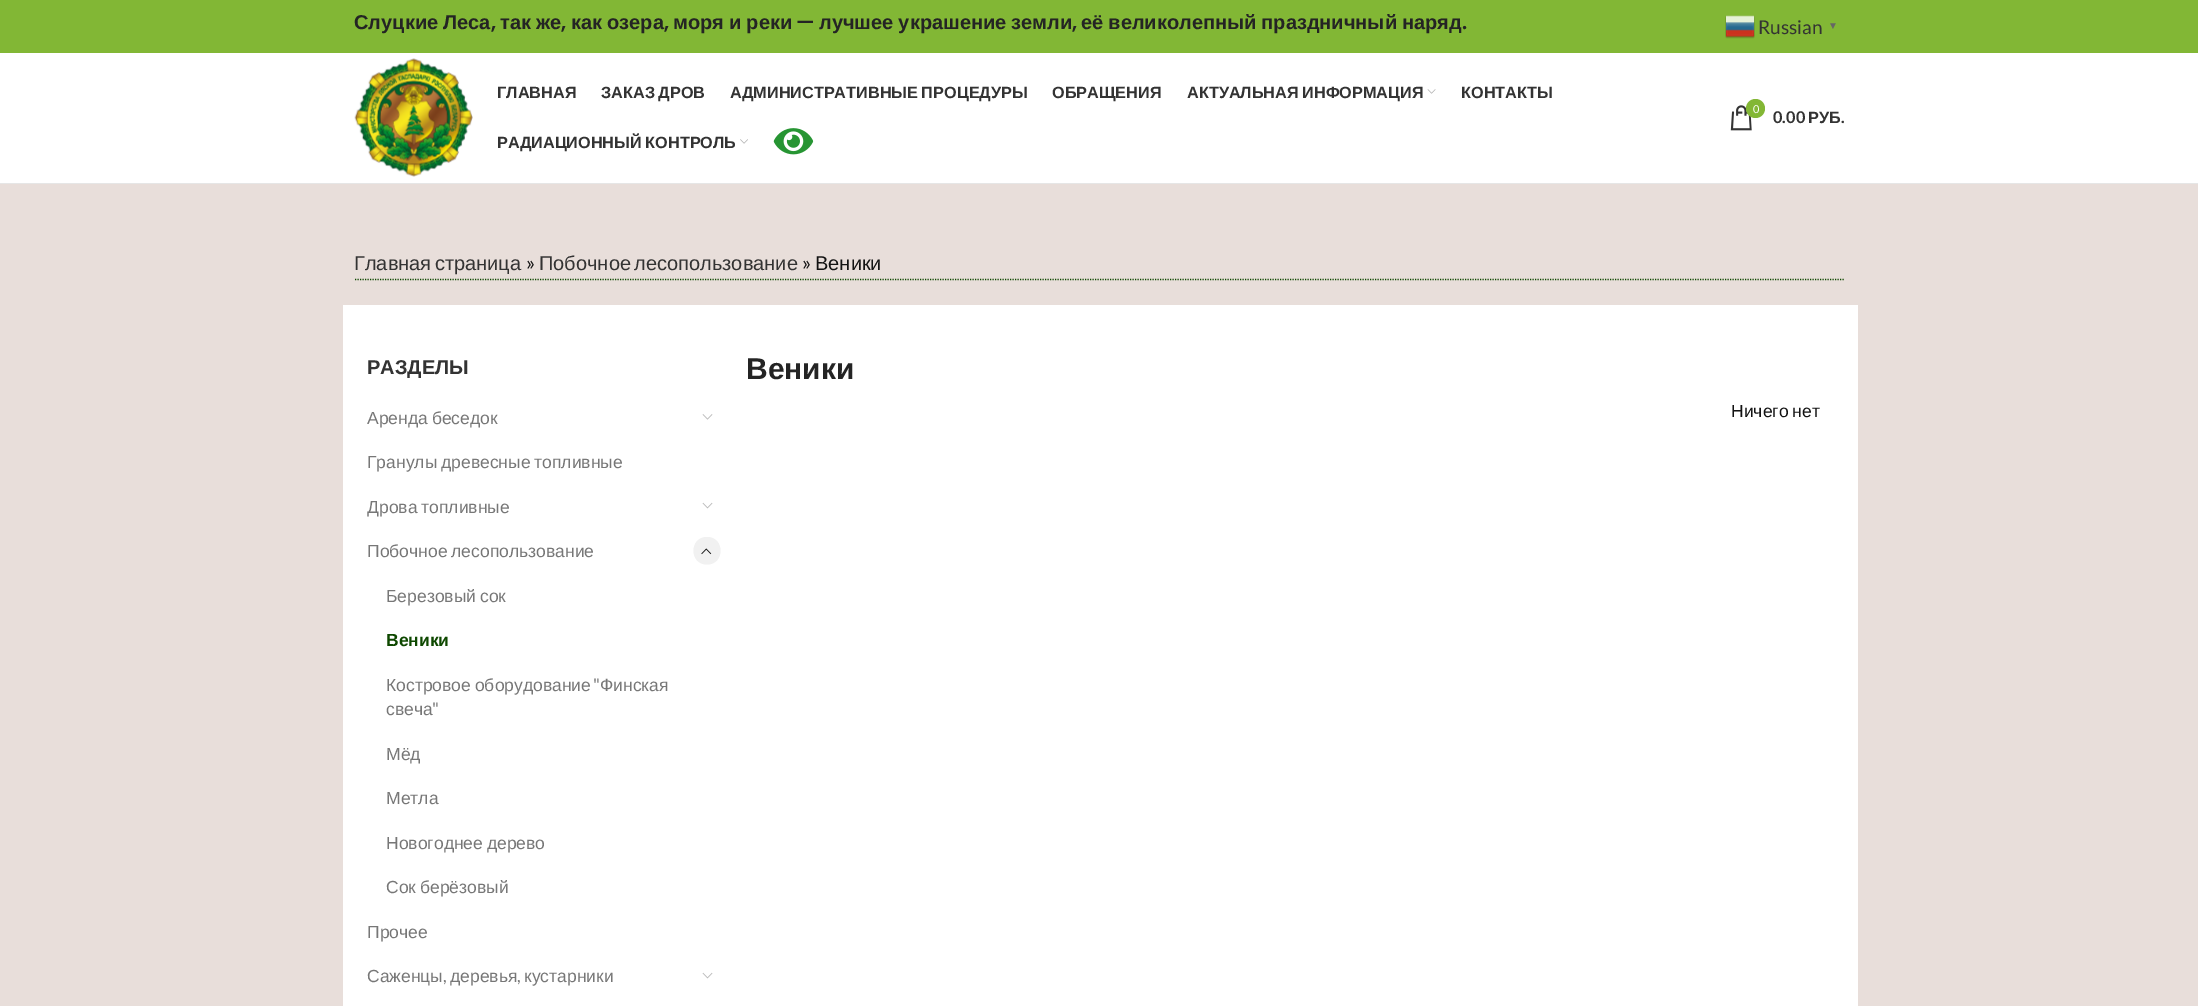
%!PS
<< /PageSize [2198 1006] >> setpagedevice
/mt/moveto load def
/li/lineto load def
/ct/curveto load def
/cp/closepath load def
/fl/fill load def
/st/stroke load def
/lw/setlinewidth load def
/co { dup -16 bitshift 255 div exch dup -8 bitshift 255 and 255 div exch 255 and 255 div setrgbcolor } def
/fn { [ exch dup neg 0 0 3 -1 roll 0 0 ] selectfont } def
/tx { co fn moveto show } def
/bx { co rectfill } def
/ci { newpath 0 360 arc closepath } def
/im { 5 dict begin { /h /w /y /x /name } { exch def } forall
  gsave x y translate w h scale
  w h 8 [w 0 0 h 0 0] name (r) file false 3 colorimage grestore end } def
0 1006 translate 1 -1 scale
4 setmiterlimit
0 0 2198 1006 16#FFFFFF bx
0 0 2198 53 16#82B735 bx
(media/1.raw) 1725 15 30 24 im
0 183 2198 1 16#E6E6E6 bx
(media/2.raw) 354 58 119 119 im
(media/3.raw) 1427 89 9 5 im
(media/4.raw) 740 139 8 5 im
(media/5.raw) 773 128 41 27 im
(media/6.raw) 1730 105 22 26 im
16#83B735 co
1755.5 108.5 9.5 ci fl
0 184 2198 822 16#E8DEDA bx
16#0E4800 co
1.2 lw
[1.25 1.25] 0 setdash
355 279.5 mt 1845 279.5 li st
343 305 1515 701 16#FFFFFF bx
(media/7.raw) 702 414 11 6 im
(media/8.raw) 702 502 11 7 im
16#F1F1F1 co
707 564.5 mt 689 564.5 689 537 707 537 ct 725 537 725 564.5 707 564.5 ct cp fl
(media/9.raw) 701 548 11 7 im
(media/8.raw) 702 972 11 7 im
/LiberationSans-Bold 20 fn
16#242424 co
354 29 mt -.5 0 32 (Слуцкие Леса) widthshow
500 29 mt -.5 0 32 (так же) widthshow
571 29 mt -.5 0 32 (как озера) widthshow
673 29 mt -.5 0 32 (моря и реки) widthshow
(—) 796 29 /Poppins-SemiBold 20 16#242424 tx
/LiberationSans-Bold 20 fn
819 29 mt -.5 0 32 (лучшее украшение земли) widthshow
1081 29 mt -.5 0 32 (её великолепный праздничный наряд) widthshow
(,) 491 29 /Poppins-SemiBold 20 16#242424 tx
(,) 561 29 /Poppins-SemiBold 20 16#242424 tx
(,) 664 29 /Poppins-SemiBold 20 16#242424 tx
(,) 1072 29 /Poppins-SemiBold 20 16#242424 tx
(.) 1462 29 /Poppins-SemiBold 20 16#242424 tx
(Russian) 1758 34 /Lato-Regular 19 16#333333 tx
(▼) 1828 29 /LiberationSans-Bold 10 16#666666 tx
(ГЛАВНАЯ) 497 98 /LiberationSans-Bold 16.25 16#333333 tx
601 98 mt -1 0 32 (ЗАКАЗ ДРОВ) widthshow
730 98 mt -1 0 32 (АДМИНИСТРАТИВНЫЕ ПРОЦЕДУРЫ) widthshow
(ОБРАЩЕНИЯ) 1052 98 /LiberationSans-Bold 16.25 16#333333 tx
1187 98 mt -1 0 32 (АКТУАЛЬНАЯ ИНФОРМАЦИЯ) widthshow
(КОНТАКТЫ) 1461 98 /LiberationSans-Bold 16.25 16#333333 tx
497 148 mt -1 0 32 (РАДИАЦИОННЫЙ КОНТРОЛЬ) widthshow
(0) 1753 113 /Lato-Regular 11 16#FFFFFF tx
(0.00) 1773 123 /Lato-Bold 16.25 16#333333 tx
(РУБ) 1808 123 /LiberationSans-Bold 16.25 16#333333 tx
(.) 1841 123 /Lato-Bold 16.25 16#333333 tx
/LiberationSans-Regular 20 fn
354 270 mt -2 0 32 (Главная страница) widthshow
(») 526 270 /Lato-Regular 20 16#131313 tx
/LiberationSans-Regular 20 fn
16#333333 co
539 270 mt -2 0 32 (Побочное лесопользование) widthshow
(») 802 270 /Lato-Regular 20 16#131313 tx
(Веники) 815 270 /LiberationSans-Regular 20 16#131313 tx
(РАЗДЕЛЫ) 367 374 /LiberationSans-Bold 20 16#333333 tx
/LiberationSans-Regular 17.5 fn
16#777777 co
367 424 mt -1 0 32 (Аренда беседок) widthshow
367 468 mt -1 0 32 (Гранулы древесные топливные) widthshow
367 513 mt -1 0 32 (Дрова топливные) widthshow
367 557 mt -1 0 32 (Побочное лесопользование) widthshow
386 602 mt -1 0 32 (Березовый сок) widthshow
(Веники) 386 646 /LiberationSans-Bold 17.5 16#0E4800 tx
/LiberationSans-Regular 17.5 fn
16#777777 co
386 691 mt -1 0 32 (Костровое оборудование) widthshow
(") 593 691 /Lato-Regular 17.5 16#777777 tx
(Финская) 600 691 /LiberationSans-Regular 17.5 16#777777 tx
(") 432 715 /Lato-Regular 17.5 16#777777 tx
(свеча) 386 715 /LiberationSans-Regular 17.5 16#777777 tx
(Мёд) 386 760 /LiberationSans-Regular 17.5 16#777777 tx
(Метла) 386 804 /LiberationSans-Regular 17.5 16#777777 tx
386 849 mt -1 0 32 (Новогоднее дерево) widthshow
386 893 mt -1 0 32 (Сок берёзовый) widthshow
(Прочее) 367 938 /LiberationSans-Regular 17.5 16#777777 tx
(Саженцы) 367 982 /LiberationSans-Regular 17.5 16#777777 tx
(,) 443 982 /Lato-Regular 17.5 16#777777 tx
(деревья) 450 982 /LiberationSans-Regular 17.5 16#777777 tx
(,) 517 982 /Lato-Regular 17.5 16#777777 tx
(кустарники) 524 982 /LiberationSans-Regular 17.5 16#777777 tx
(Веники) 746 379 /LiberationSans-Bold 30 16#242424 tx
/LiberationSans-Regular 17.5 fn
16#131313 co
1731 417 mt -1 0 32 (Ничего нет) widthshow
showpage
